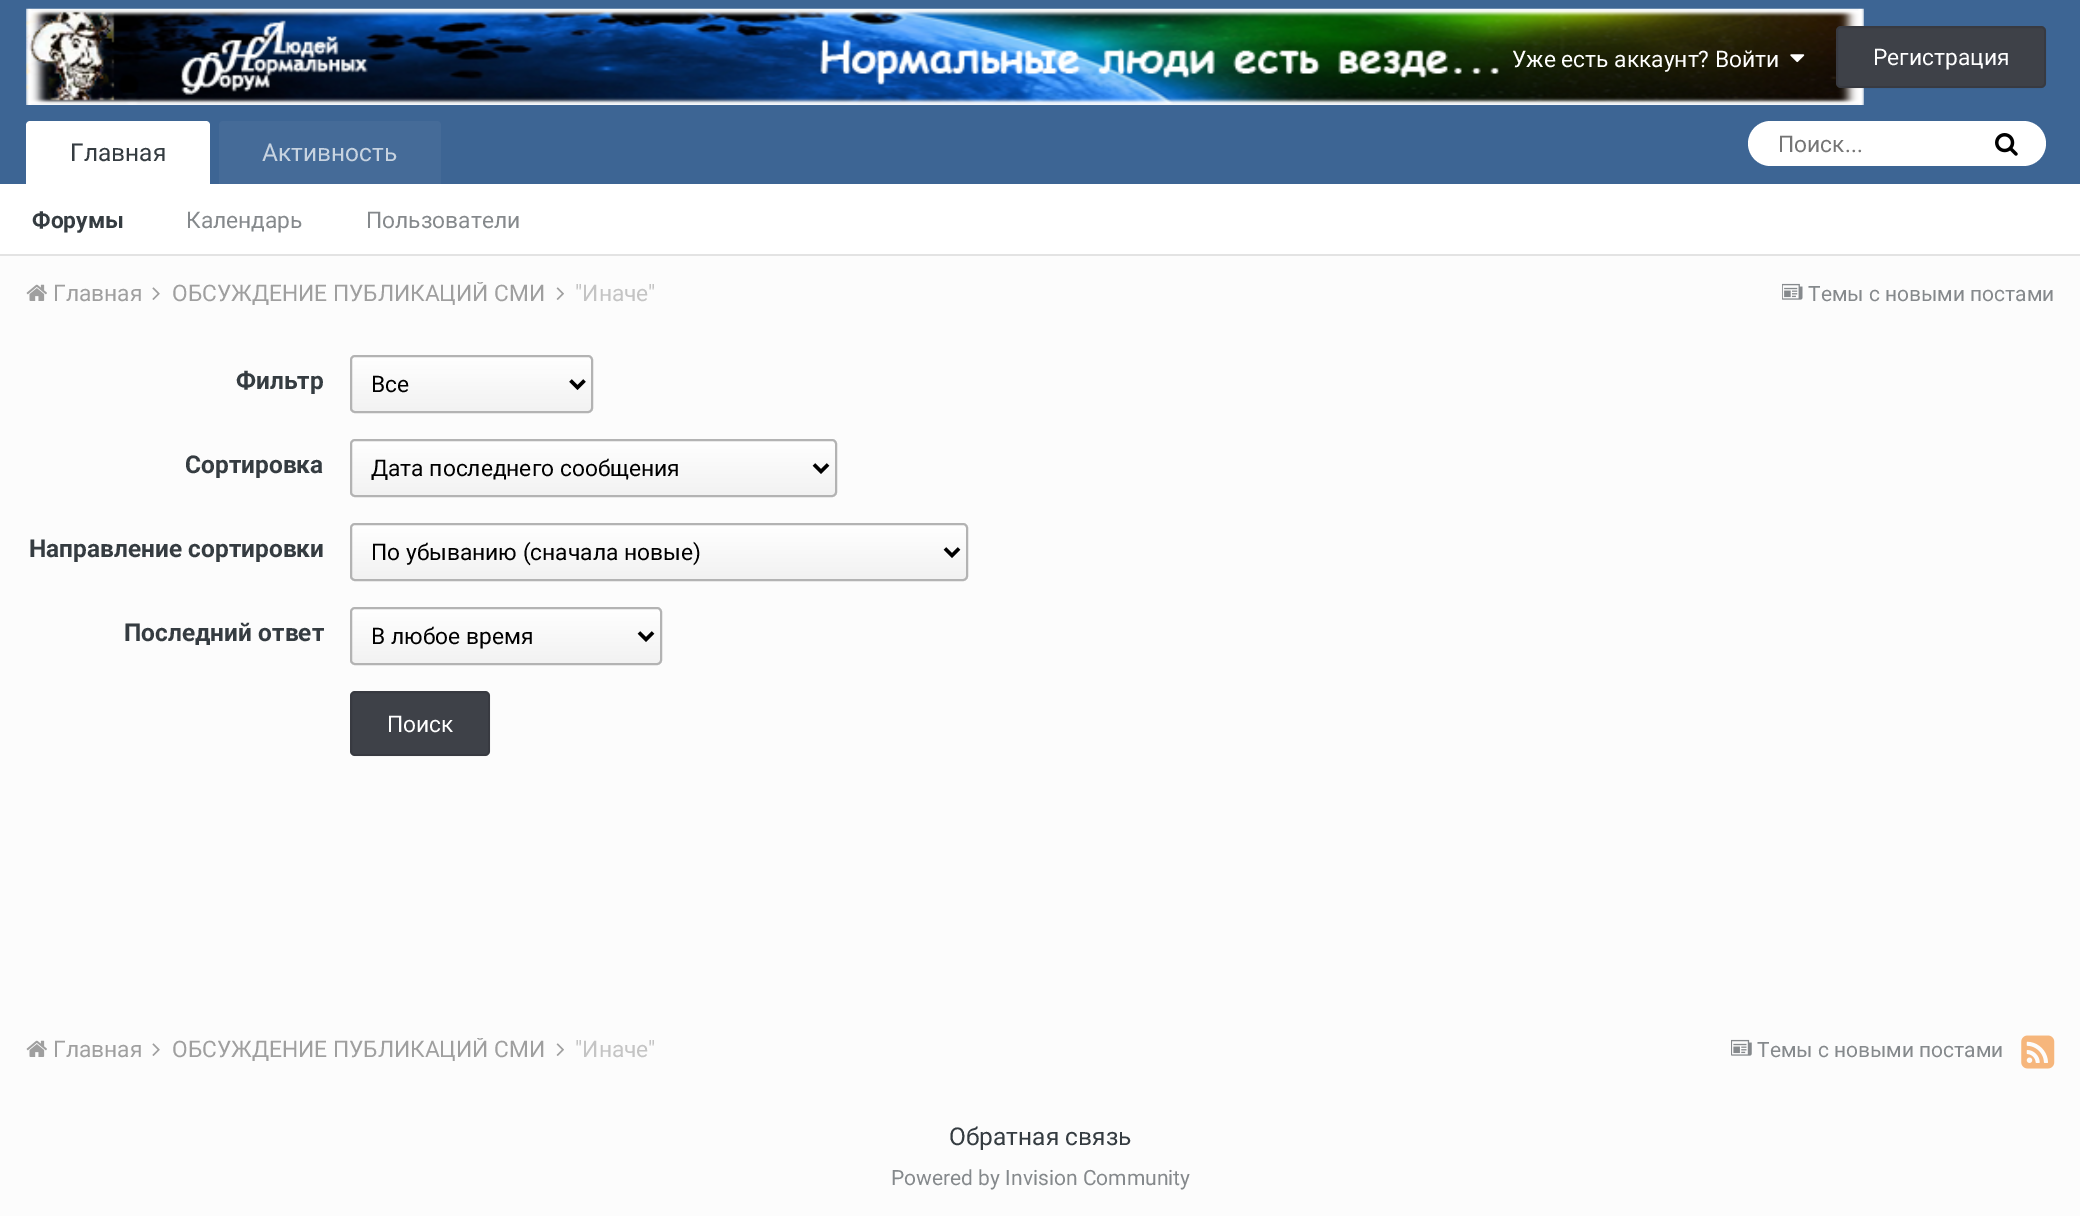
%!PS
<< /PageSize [2080 1216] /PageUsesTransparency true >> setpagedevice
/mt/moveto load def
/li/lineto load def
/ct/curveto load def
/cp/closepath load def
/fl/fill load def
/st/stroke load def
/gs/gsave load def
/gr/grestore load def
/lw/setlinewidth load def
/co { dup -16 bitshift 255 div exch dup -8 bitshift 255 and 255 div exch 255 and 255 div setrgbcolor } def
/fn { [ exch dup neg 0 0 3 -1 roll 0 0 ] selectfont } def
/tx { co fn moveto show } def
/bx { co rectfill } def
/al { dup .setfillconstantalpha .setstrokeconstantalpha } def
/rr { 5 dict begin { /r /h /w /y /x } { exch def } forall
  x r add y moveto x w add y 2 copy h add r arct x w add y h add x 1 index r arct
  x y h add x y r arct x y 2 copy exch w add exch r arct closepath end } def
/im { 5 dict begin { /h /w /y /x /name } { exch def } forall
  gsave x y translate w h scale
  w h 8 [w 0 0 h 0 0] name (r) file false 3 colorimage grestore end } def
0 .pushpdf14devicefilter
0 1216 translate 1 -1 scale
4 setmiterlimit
0 0 2080 1216 16#FCFCFC bx
0 254 2080 2 16#E3E3E3 bx
0 0 2080 184 16#3D6594 bx
(media/1.raw) 26 8 1838 97 im
(media/2.raw) 1790 54 15 9 im
16#3E4148 co
1836 26 210 62 5 rr fl
0.1 al
16#000000 co
2 lw
1837 27 208 60 4 rr st
1 al
0 184 2080 70 16#FFFFFF bx
30 121 mt 206 121 li 208 121 210 123 210 125 ct 210 184 li 26 184 li 26 125 li 26 123 28 121 30 121 ct cp fl
16#456B98 co
223 121 mt 437 121 li 439 121 441 123 441 125 ct 441 184 li 219 184 li 219 125 li 219 123 221 121 223 121 ct cp fl
16#FFFFFF co
1748 121 298 45 22.5 rr fl
(media/3.raw) 1995 133 23 23 im
(media/4.raw) 26 284 21 17 im
(media/5.raw) 152 287 8 13 im
(media/6.raw) 556 287 8 13 im
(media/7.raw) 1782 283 21 17 im
gs
350 355 243 58 5 rr clip newpath
gs 350 357 mt 593 357 li 593 411 li 350 411 li cp clip newpath
<< /ShadingType 2 /ColorSpace /DeviceRGB /Coords [472 357 472 411] /Extend [true true] /Function << /FunctionType 2 /Domain [0 1] /C0 [1 1 1] /C1 [.949 .949 .949] /N 1 >> >> shfill gr
gr
16#B3B3B3 co
351 356 241 56 4 rr st
16#000000 co
3.5 lw
570.5 380.5 mt 577.5 387.5 li 584.5 380.5 li st
gs
350 439 487 58 5 rr clip newpath
gs 350 441 mt 837 441 li 837 495 li 350 495 li cp clip newpath
<< /ShadingType 2 /ColorSpace /DeviceRGB /Coords [593 441 593 495] /Extend [true true] /Function << /FunctionType 2 /Domain [0 1] /C0 [1 1 1] /C1 [.949 .949 .949] /N 1 >> >> shfill gr
gr
16#B3B3B3 co
2 lw
351 440 485 56 4 rr st
16#000000 co
3.5 lw
814 464.5 mt 821 471.5 li 828 464.5 li st
gs
350 523 618 58 5 rr clip newpath
gs 350 525 mt 968 525 li 968 579 li 350 579 li cp clip newpath
<< /ShadingType 2 /ColorSpace /DeviceRGB /Coords [659 525 659 579] /Extend [true true] /Function << /FunctionType 2 /Domain [0 1] /C0 [1 1 1] /C1 [.949 .949 .949] /N 1 >> >> shfill gr
gr
16#B3B3B3 co
2 lw
351 524 616 56 4 rr st
16#000000 co
3.5 lw
945 548.5 mt 952 555.5 li 959 548.5 li st
gs
350 607 312 58 5 rr clip newpath
gs 350 609 mt 662 609 li 662 663 li 350 663 li cp clip newpath
<< /ShadingType 2 /ColorSpace /DeviceRGB /Coords [506 609 506 663] /Extend [true true] /Function << /FunctionType 2 /Domain [0 1] /C0 [1 1 1] /C1 [.949 .949 .949] /N 1 >> >> shfill gr
gr
16#B3B3B3 co
2 lw
351 608 310 56 4 rr st
16#000000 co
3.5 lw
639 632.5 mt 646 639.5 li 653 632.5 li st
16#3E4148 co
350 691 140 65 5 rr fl
0.1 al
16#000000 co
2 lw
351 692 138 63 4 rr st
1 al
(media/4.raw) 26 1040 21 17 im
(media/5.raw) 152 1043 8 13 im
(media/6.raw) 556 1043 8 13 im
(media/8.raw) 1731 1039 21 17 im
(media/9.raw) 2021 1035 34 34 im
(Уже есть аккаунт? Войти) 1512 67 /Roboto-Regular 22.75 16#FFFFFF tx
(Регистрация) 1873 65 /Roboto-Regular 22.75 16#FFFFFF tx
(Главная) 70 161 /Roboto-Regular 24.5 16#353C41 tx
(Форумы) 32 228 /Roboto-Bold 22.75 16#353C41 tx
(Календарь) 186 228 /Roboto-Regular 22.75 16#85898C tx
(Пользователи) 366 228 /Roboto-Regular 22.75 16#85898C tx
(Активность) 262 161 /Roboto-Regular 24.5 16#C7D3E0 tx
(Поиск...) 1778 152 /Roboto-Regular 22.75 16#757575 tx
(Главная) 53 301 /Roboto-Regular 22.75 16#9F9F9F tx
gs
172 282 397 26 rectclip
(ОБСУЖДЕНИЕ ПУБЛИКАЦИЙ CМИ) 172 301 /Roboto-Regular 22.75 16#9F9F9F tx
gr
("Иначе") 575 301 /Roboto-Regular 22.75 16#C4C4C4 tx
(Темы с новыми постами) 1808 301 /Roboto-Regular 21 16#85898C tx
(Фильтр) 236 389 /Roboto-Bold 24.5 16#353C41 tx
(Все) 371 392 /Roboto-Regular 22.75 16#000000 tx
(Сортировка) 185 473 /Roboto-Bold 24.5 16#353C41 tx
(Дата последнего сообщения) 371 476 /Roboto-Regular 22.75 16#000000 tx
(Направление сортировки) 29 557 /Roboto-Bold 24.5 16#353C41 tx
(По убыванию \(сначала новые\)) 371 560 /Roboto-Regular 22.75 16#000000 tx
(Последний ответ) 124 641 /Roboto-Bold 24.5 16#353C41 tx
(В любое время) 371 644 /Roboto-Regular 22.75 16#000000 tx
(Поиск) 387 732 /Roboto-Regular 22.75 16#FFFFFF tx
(Главная) 53 1057 /Roboto-Regular 22.75 16#9F9F9F tx
gs
172 1038 397 26 rectclip
(ОБСУЖДЕНИЕ ПУБЛИКАЦИЙ CМИ) 172 1057 /Roboto-Regular 22.75 16#9F9F9F tx
gr
("Иначе") 575 1057 /Roboto-Regular 22.75 16#C4C4C4 tx
(Темы с новыми постами) 1757 1057 /Roboto-Regular 21 16#85898C tx
(Обратная связь) 949 1145 /Roboto-Regular 24.5 16#353C41 tx
(Powered by Invision Community) 891 1185 /Roboto-Regular 21 16#85898C tx
.poppdf14devicefilter showpage
